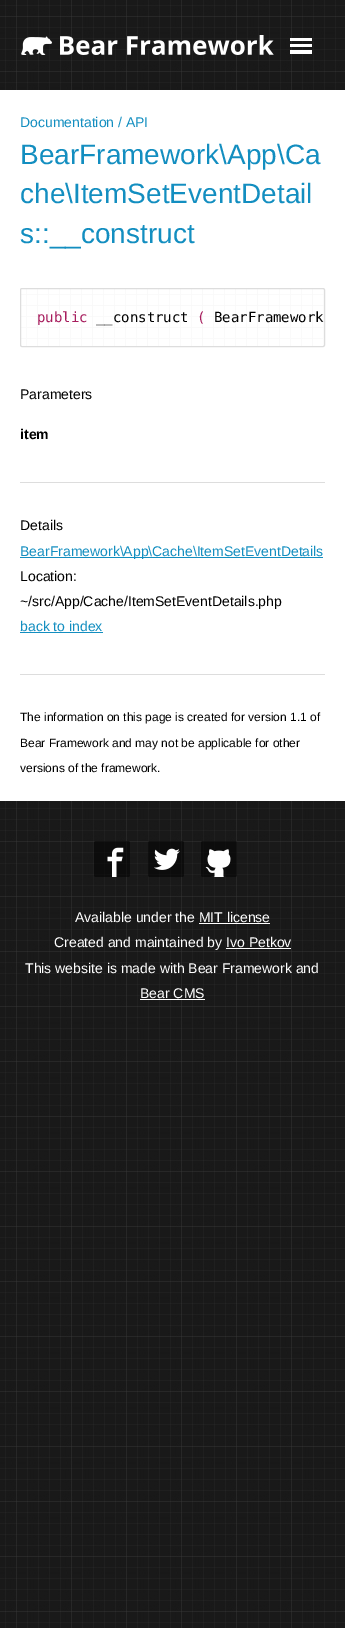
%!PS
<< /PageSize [345 1628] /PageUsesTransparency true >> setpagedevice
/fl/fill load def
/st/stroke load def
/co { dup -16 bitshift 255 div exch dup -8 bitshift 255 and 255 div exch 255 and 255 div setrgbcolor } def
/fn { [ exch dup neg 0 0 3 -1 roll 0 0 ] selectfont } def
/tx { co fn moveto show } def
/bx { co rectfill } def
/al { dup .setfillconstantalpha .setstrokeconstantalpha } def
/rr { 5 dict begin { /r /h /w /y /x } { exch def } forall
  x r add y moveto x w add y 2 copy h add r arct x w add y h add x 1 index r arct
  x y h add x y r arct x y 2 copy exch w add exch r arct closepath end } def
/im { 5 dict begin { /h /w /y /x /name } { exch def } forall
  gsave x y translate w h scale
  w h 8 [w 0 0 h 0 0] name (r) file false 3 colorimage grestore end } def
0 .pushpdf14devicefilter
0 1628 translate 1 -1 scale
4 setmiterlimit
0 0 345 1628 16#FFFFFF bx
(media/1.raw) 0 0 345 1628 im
(media/2.raw) 21 35 253 20 im
290 38 22 3 16#FFFFFF bx
290 44 22 3 16#FFFFFF bx
290 50 22 4 16#FFFFFF bx
0 90 345 711 16#FFFFFF bx
(media/3.raw) 20 288 305 59 im
16#DDDDDD co
20.5 288.5 304 58 1.5 rr st
20 482 305 1 16#DDDDDD bx
20 557 303 1 16#138EC0 bx
20 632 83 1 16#138EC0 bx
20 674 305 1 16#DDDDDD bx
0.5 al
16#000000 co
94 841 36 36 2 rr fl
1 al
(media/4.raw) 107 847 17 30 im
0.5 al
148 841 36 36 2 rr fl
1 al
(media/5.raw) 154 848 26 22 im
0.5 al
201 841 36 36 2 rr fl
1 al
(media/6.raw) 205 849 26 28 im
199 923 71 1 16#FFFFFF bx
226 948 65 1 16#FFFFFF bx
140 999 65 1 16#FFFFFF bx
(Documentation / API) 20 127 /LiberationSans-Regular 14 16#138EC0 tx
(BearFramework\\App\\Ca) 20 164 /LiberationSans-Regular 28 16#138EC0 tx
(che\\ItemSetEventDetail) 20 203 /LiberationSans-Regular 28 16#138EC0 tx
(s::__construct) 20 243 /LiberationSans-Regular 28 16#138EC0 tx
(public) 37 322 /DejaVuSansMono-Regular 14 16#A71D5D tx
(__construct) 96 322 /DejaVuSansMono-Regular 14 16#000000 tx
(\() 197 322 /DejaVuSansMono-Regular 14 16#A71D5D tx
(BearFramework) 214 322 /DejaVuSansMono-Regular 14 16#000000 tx
(Parameters) 20 399 /LiberationSans-Regular 14 16#000000 tx
(item) 20 439 /LiberationSans-Bold 14 16#000000 tx
(Details) 20 530 /LiberationSans-Regular 14 16#000000 tx
(BearFramework\\App\\Cache\\ItemSetEventDetails) 20 556 /LiberationSans-Regular 14 16#138EC0 tx
(Location:) 20 581 /LiberationSans-Regular 14 16#000000 tx
(~/src/App/Cache/ItemSetEventDetails.php) 20 606 /LiberationSans-Regular 14 16#000000 tx
(back to index) 20 631 /LiberationSans-Regular 14 16#138EC0 tx
(The information on this page is created for version 1.1 of) 20 721 /LiberationSans-Regular 12 16#000000 tx
(Bear Framework and may not be applicable for other) 20 747 /LiberationSans-Regular 12 16#000000 tx
(versions of the framework.) 20 772 /LiberationSans-Regular 12 16#000000 tx
(Available under the MIT license) 75 922 /LiberationSans-Regular 14 16#FFFFFF tx
(Created and maintained by Ivo Petkov) 54 947 /LiberationSans-Regular 14 16#FFFFFF tx
(This website is made with Bear Framework and) 25 973 /LiberationSans-Regular 14 16#FFFFFF tx
(Bear CMS) 140 998 /LiberationSans-Regular 14 16#FFFFFF tx
.poppdf14devicefilter showpage
